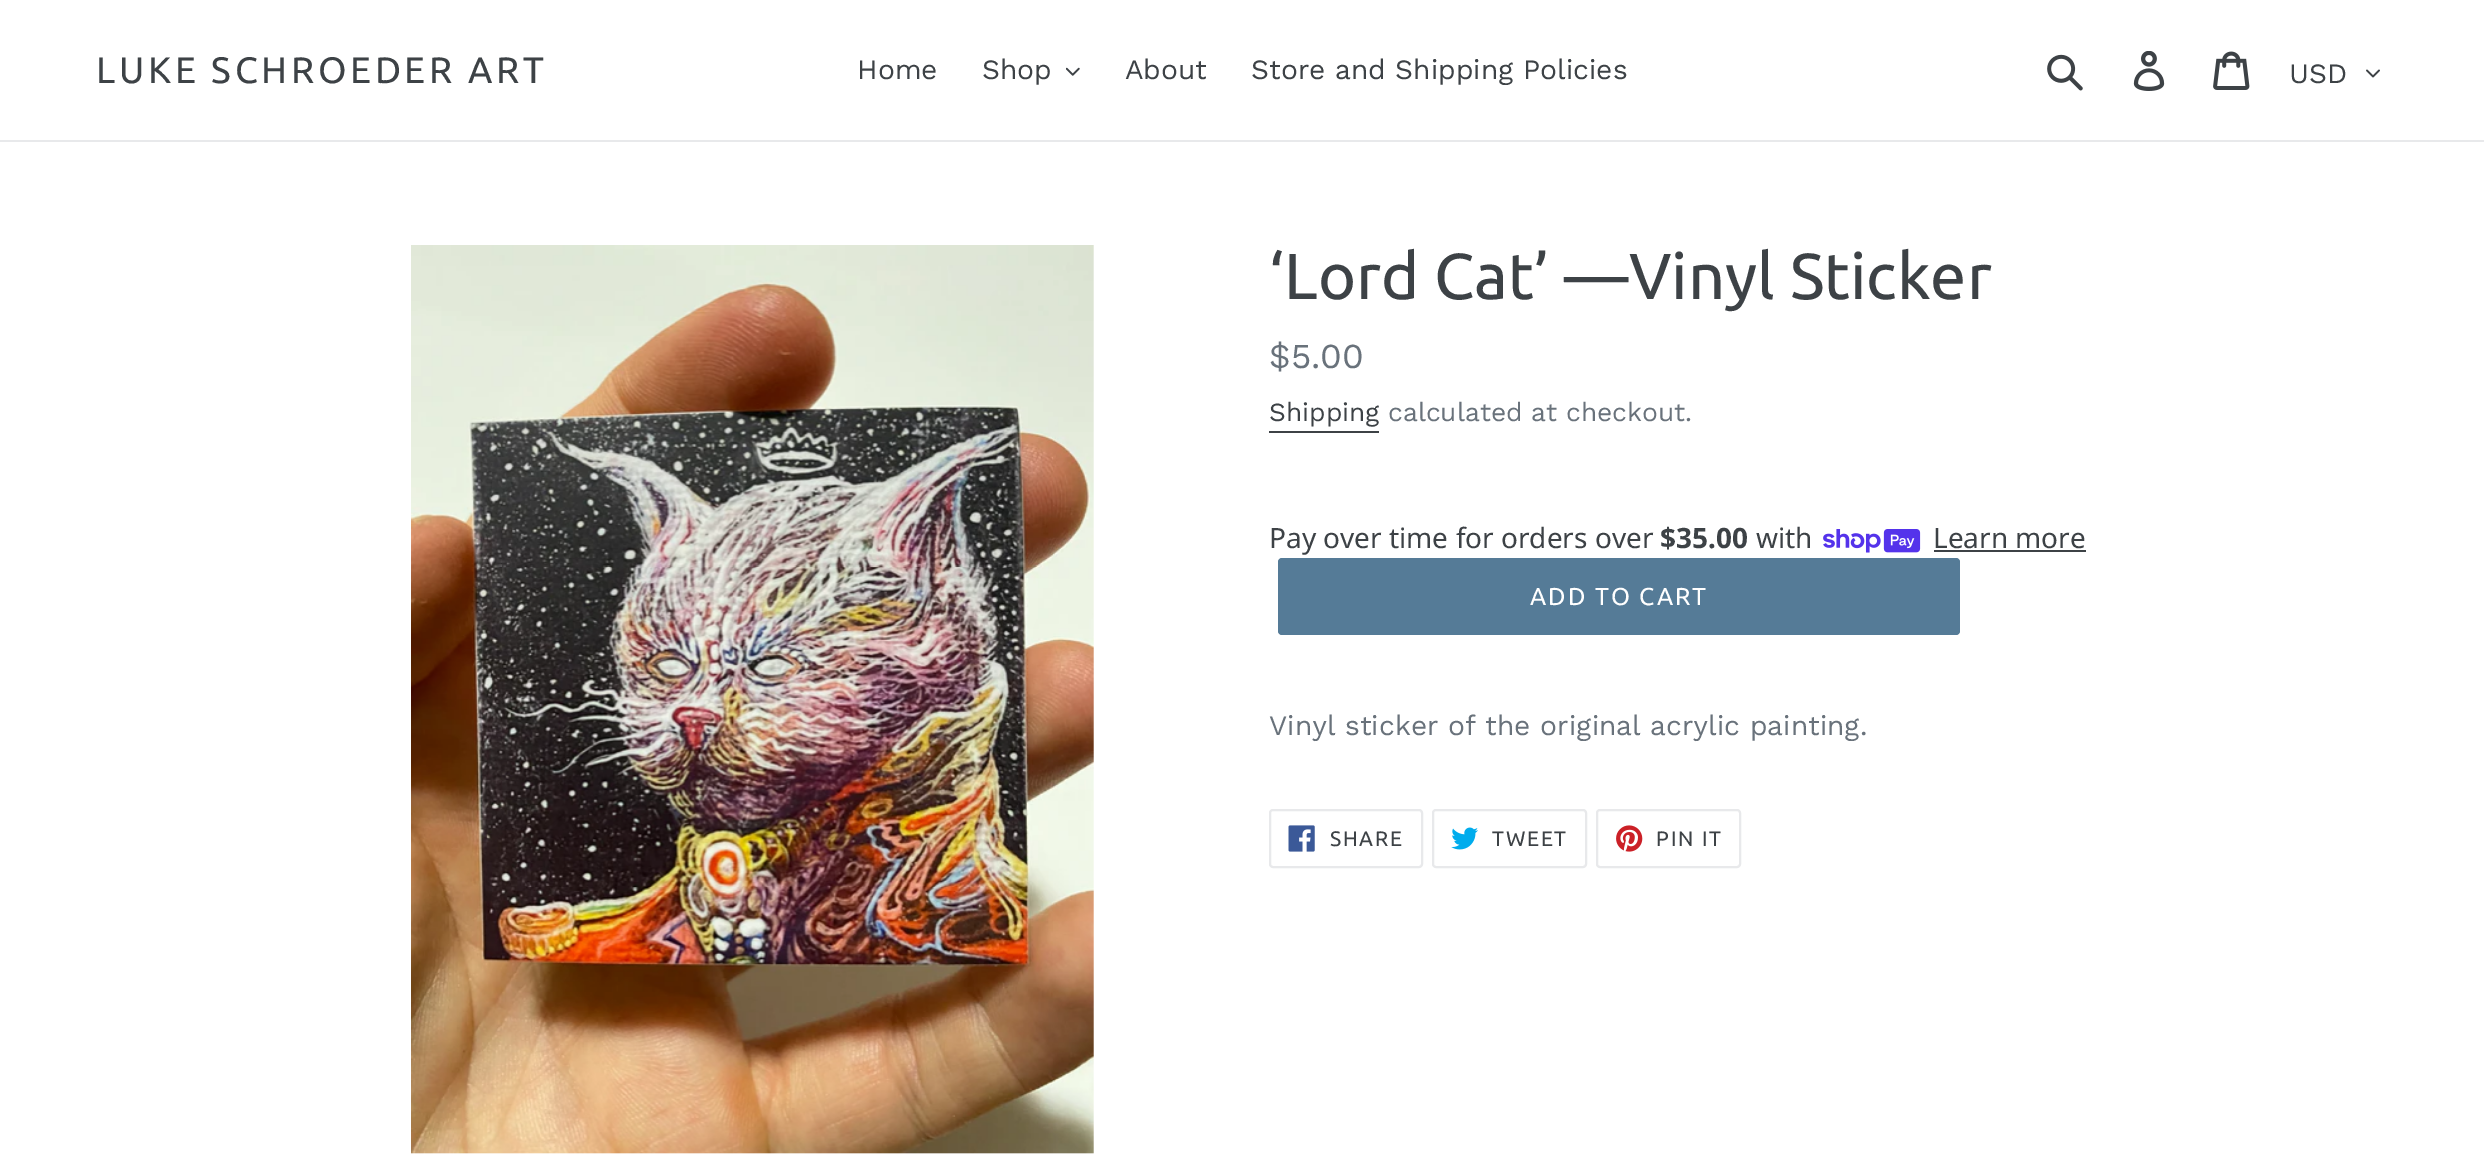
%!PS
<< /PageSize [2484 1172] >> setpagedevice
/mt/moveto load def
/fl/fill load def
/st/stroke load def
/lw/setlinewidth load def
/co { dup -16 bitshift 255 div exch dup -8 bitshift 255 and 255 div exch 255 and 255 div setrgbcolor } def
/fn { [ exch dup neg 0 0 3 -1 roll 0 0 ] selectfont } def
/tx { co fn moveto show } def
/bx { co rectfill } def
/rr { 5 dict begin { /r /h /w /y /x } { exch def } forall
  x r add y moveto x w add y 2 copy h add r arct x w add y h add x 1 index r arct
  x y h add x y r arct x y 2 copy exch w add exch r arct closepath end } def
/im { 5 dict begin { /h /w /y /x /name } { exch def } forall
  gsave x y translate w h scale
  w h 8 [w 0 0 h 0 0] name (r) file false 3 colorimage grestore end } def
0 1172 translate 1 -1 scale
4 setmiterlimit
0 0 2484 1172 16#FFFFFF bx
0 140 2484 2 16#E8E9EB bx
(media/1.raw) 1066 67 14 9 im
(media/2.raw) 2047 54 36 37 im
(media/3.raw) 2133 51 32 40 im
(media/4.raw) 2213 51 37 39 im
(media/5.raw) 2366 69 14 9 im
(media/6.raw) 411 245 683 909 im
1269 431 110 2 16#3D4246 bx
(media/7.raw) 1823 529 98 24 im
1934 550 152 2 16#3D4246 bx
16#557B97 co
1278 558 682 77 4 rr fl
16#E8E9EB co
2 lw
1270 810 152 57 3 rr st
(media/8.raw) 1288 825 27 27 im
1433 810 153 57 3 rr st
(media/9.raw) 1451 827 27 23 im
1597 810 143 57 3 rr st
(media/10.raw) 1616 825 27 27 im
/Ubuntu-Regular 36.75 fn
16#3D4246 co
96 83 mt 3.7 0 (LUKE SCHROEDER ART) ashow
(Home) 857 79 /WorkSans-Regular 28 16#3D4246 tx
(Shop) 982 79 /WorkSans-Regular 28 16#3D4246 tx
(About) 1125 79 /WorkSans-Regular 28 16#3D4246 tx
(Store and Shipping Policies) 1251 79 /WorkSans-Regular 28 16#3D4246 tx
(USD) 2289 83 /WorkSans-Regular 28 16#3D4246 tx
(‘Lord Cat’ —Vinyl Sticker) 1269 299 /Ubuntu-Regular 64.75 16#3D4246 tx
($5.00) 1269 368 /WorkSans-Regular 35 16#69727B tx
(Shipping) 1269 421 /WorkSans-Regular 26.25 16#3D4246 tx
(calculated at checkout.) 1388 421 /WorkSans-Regular 26.25 16#69727B tx
(Pay over time for orders over) 1269 548 /NotoSans-Regular 28 16#3D4246 tx
($35.00) 1660 548 /NotoSans-Bold 28 16#3D4246 tx
(with) 1756 548 /NotoSans-Regular 28 16#3D4246 tx
(Learn more) 1933 548 /NotoSans-Regular 28 16#3D4246 tx
/Ubuntu-Regular 24.5 fn
16#FFFFFF co
1530 605 mt 2 0 (ADD TO CART) ashow
(Vinyl sticker of the original acrylic painting.) 1269 735 /WorkSans-Regular 28 16#69727B tx
/Ubuntu-Regular 21 fn
16#3D4246 co
1330 846 mt 1.75 0 (SHARE) ashow
1492 846 mt 1.75 0 (TWEET) ashow
1656 846 mt 1.75 0 (PIN IT) ashow
showpage
